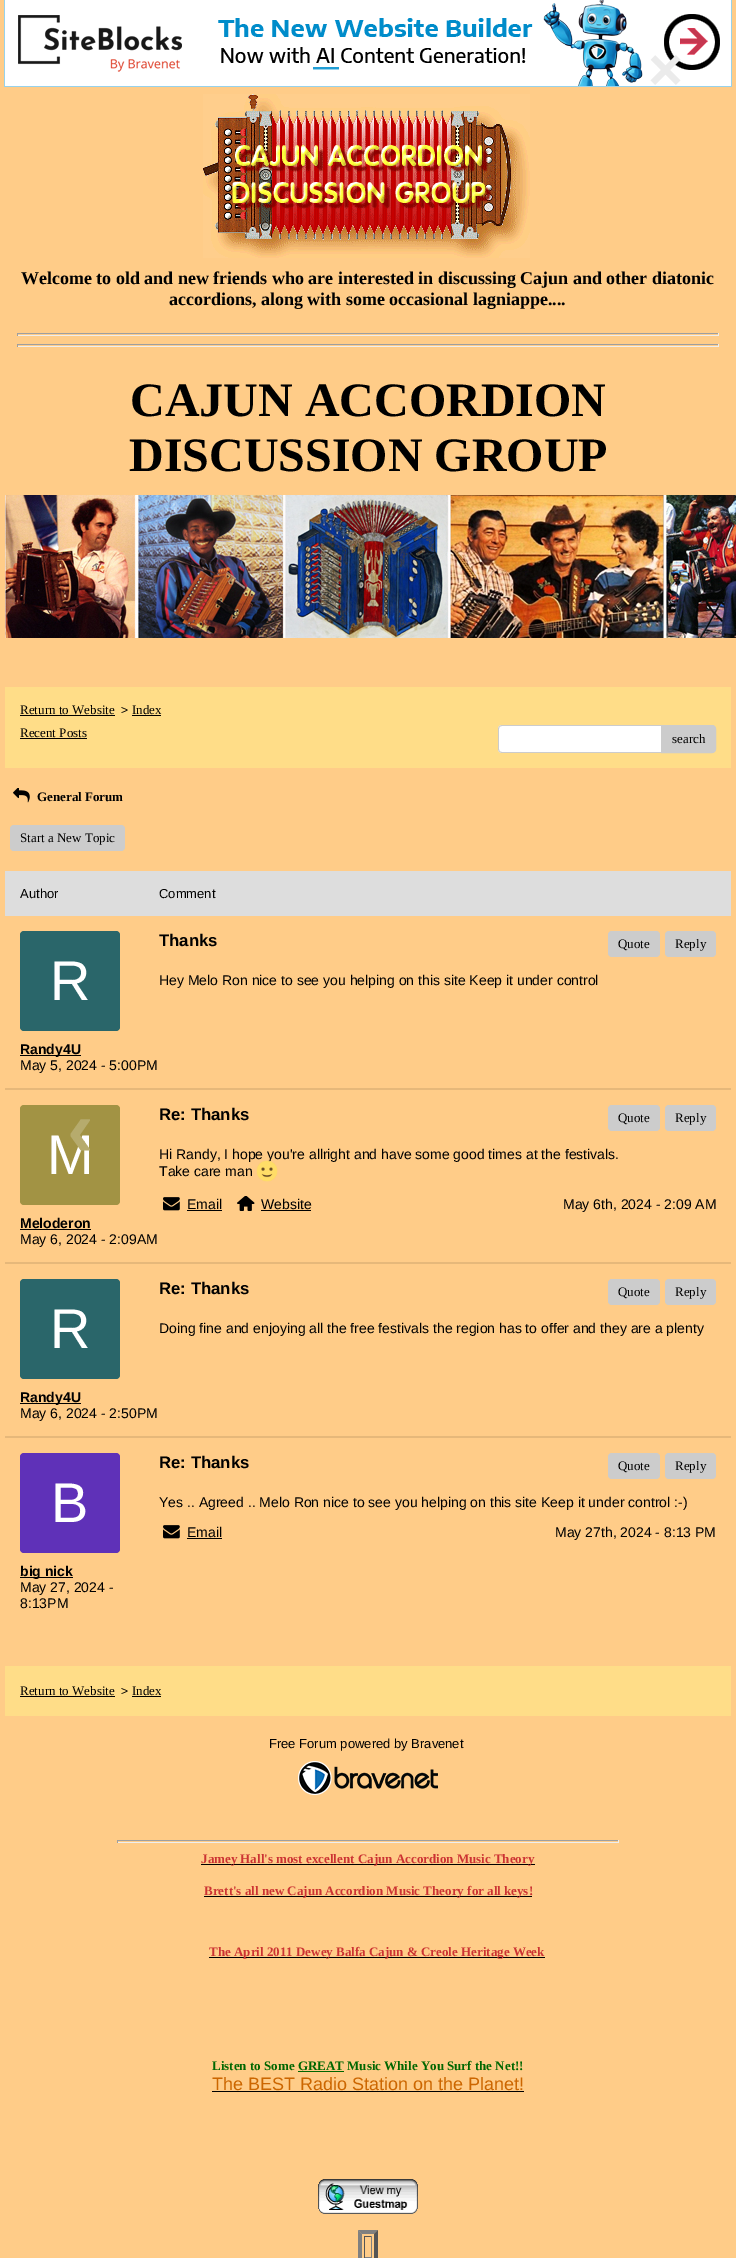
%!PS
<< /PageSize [736 2258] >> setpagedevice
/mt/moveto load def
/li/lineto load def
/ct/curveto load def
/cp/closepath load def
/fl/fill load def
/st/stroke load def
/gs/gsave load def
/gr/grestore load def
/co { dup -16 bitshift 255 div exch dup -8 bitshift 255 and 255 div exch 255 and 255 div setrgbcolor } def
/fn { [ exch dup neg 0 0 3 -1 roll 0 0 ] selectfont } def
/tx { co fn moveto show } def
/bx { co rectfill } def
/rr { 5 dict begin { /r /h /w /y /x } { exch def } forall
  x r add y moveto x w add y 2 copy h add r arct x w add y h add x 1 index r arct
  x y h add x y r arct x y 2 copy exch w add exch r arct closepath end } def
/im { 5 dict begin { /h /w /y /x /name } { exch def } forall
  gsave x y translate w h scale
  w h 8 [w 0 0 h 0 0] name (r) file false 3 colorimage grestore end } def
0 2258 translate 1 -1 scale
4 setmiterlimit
0 0 736 2258 16#FFCC88 bx
(media/1.raw) 4 0 728 87 im
5 871 726 45 16#DDDDDD bx
5 1088 726 2 16#E6B87A bx
16#2A666A co
20 931 100 100 4 rr fl
20 1055 61 1 16#000000 bx
16#CCCCCC co
608 931 52 26 4 rr fl
665 931 51 26 4 rr fl
5 1262 726 2 16#E6B87A bx
16#A29344 co
20 1105 100 100 4 rr fl
20 1229 71 1 16#000000 bx
16#CCCCCC co
608 1105 52 26 4 rr fl
665 1105 51 26 4 rr fl
(media/3.raw) 163 1197 17 14 im
187 1210 35 1 16#000000 bx
(media/4.raw) 237 1196 18 15 im
261 1210 50 1 16#000000 bx
5 1436 726 2 16#E6B87A bx
16#2A666A co
20 1279 100 100 4 rr fl
20 1403 61 1 16#000000 bx
16#CCCCCC co
608 1279 52 26 4 rr fl
665 1279 51 26 4 rr fl
16#5F31B8 co
20 1453 100 100 4 rr fl
20 1577 53 1 16#000000 bx
16#CCCCCC co
608 1453 52 26 4 rr fl
665 1453 51 26 4 rr fl
(media/3.raw) 163 1525 17 14 im
187 1538 35 1 16#000000 bx
(media/5.raw) 13 788 17 15 im
16#CCCCCC co
10 825 115 26 4 rr fl
5 1666 726 50 16#FFDD88 bx
20 1696 95 1 16#000000 bx
132 1696 29 1 16#000000 bx
(media/6.raw) 298 1761 140 34 im
(media/7.raw) 5 495 731 143 im
5 687 726 81 16#FFDD88 bx
20 715 95 1 16#000000 bx
132 715 29 1 16#000000 bx
20 738 67 1 16#000000 bx
16#FFFFFF co
498 725 208 28 4 rr fl
16#CCCCCC co
502 725 mt 702 725 li 704 725 706 727 706 729 ct 706 749 li 706 751 704 753 702 753 ct 502 753 li 500 753 498 751 498 749 ct 498 729 li 498 727 500 725 502 725 ct cp 502 726 mt 702 726 li 704 726 706 727 706 729 ct 706 749 li 706 751 704 752 702 752 ct 502 752 li 500 752 499 751 499 749 ct 499 729 li 499 727 500 726 502 726 ct cp eofill
661.5 725.5 mt 712 725.5 li 714 725.5 715.5 727 715.5 729 ct 715.5 749 li 715.5 751 714 752.5 712 752.5 ct 661.5 752.5 li cp gs fl gr
st
117 1840 502 1 16#9F9F9F bx
618 1840 1 3 16#EEEEEE bx
117 1842 502 1 16#EEEEEE bx
117 1840 1 3 16#9F9F9F bx
201 1864 334 1 16#000000 bx
204 1896 328 1 16#000000 bx
209 1957 336 1 16#000000 bx
298 2071 46 1 16#006600 bx
212 2091 312 1 16#000000 bx
(media/8.raw) 318 2179 100 35 im
16#808080 co
358 2230 mt 378 2230 li 374 2234 li 362 2234 li cp fl
16#555555 co
378 2230 mt 378 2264 li 374 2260 li 374 2234 li cp fl
16#808080 co
358 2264 mt 358 2230 li 362 2234 li 362 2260 li cp fl
364 2236 8 1 16#555555 bx
371 2236 1 22 16#808080 bx
364 2257 8 1 16#808080 bx
364 2236 1 22 16#555555 bx
(media/9.raw) 203 94 327 164 im
17 333 702 1 16#9F9F9F bx
718 333 1 3 16#EEEEEE bx
17 335 702 1 16#EEEEEE bx
17 333 1 3 16#9F9F9F bx
17 344 702 1 16#9F9F9F bx
718 344 1 3 16#EEEEEE bx
17 346 702 1 16#EEEEEE bx
17 344 1 3 16#9F9F9F bx
(×) 648 90 /LiberationSans-Bold 60 16#EBEBEB tx
(Author) 20 898 /LiberationSans-Regular 13 16#000000 tx
(Comment) 159 898 /LiberationSans-Regular 13 16#000000 tx
(R) 50 1000 /LiberationSans-Regular 56 16#FFFFFF tx
(Randy4U) 20 1054 /LiberationSans-Bold 14 16#000000 tx
(May 5, 2024 - 5:00PM) 20 1070 /LiberationSans-Regular 14 16#000000 tx
(Thanks) 159 946 /LiberationSans-Bold 16.75 16#000000 tx
(Quote) 618 948 /LiberationSerif-Regular 13 16#000000 tx
(Reply) 675 948 /LiberationSerif-Regular 13 16#000000 tx
(Hey Melo Ron nice to see you helping on this site Keep it under control) 159 985 /LiberationSans-Regular 14 16#000000 tx
(M) 47 1174 /LiberationSans-Regular 56 16#FFFFFF tx
(‹) 67 1156 /LiberationSans-Bold 80 16#B6AB6D tx
(Meloderon) 20 1228 /LiberationSans-Bold 14 16#000000 tx
(May 6, 2024 - 2:09AM) 20 1244 /LiberationSans-Regular 14 16#000000 tx
(Re: Thanks) 159 1120 /LiberationSans-Bold 16.75 16#000000 tx
(Quote) 618 1122 /LiberationSerif-Regular 13 16#000000 tx
(Reply) 675 1122 /LiberationSerif-Regular 13 16#000000 tx
(Hi Randy, I hope you're allright and have some good times at the festivals.) 159 1159 /LiberationSans-Regular 14 16#000000 tx
(Take care man) 159 1176 /LiberationSans-Regular 14 16#000000 tx
(media/2.raw) 256 1160 22 22 im
(Email) 187 1209 /LiberationSans-Regular 14 16#000000 tx
(Website) 261 1209 /LiberationSans-Regular 14 16#000000 tx
(May 6th, 2024 - 2:09 AM) 563 1209 /LiberationSans-Regular 14 16#000000 tx
(R) 50 1348 /LiberationSans-Regular 56 16#FFFFFF tx
(Randy4U) 20 1402 /LiberationSans-Bold 14 16#000000 tx
(May 6, 2024 - 2:50PM) 20 1418 /LiberationSans-Regular 14 16#000000 tx
(Re: Thanks) 159 1294 /LiberationSans-Bold 16.75 16#000000 tx
(Quote) 618 1296 /LiberationSerif-Regular 13 16#000000 tx
(Reply) 675 1296 /LiberationSerif-Regular 13 16#000000 tx
(Doing fine and enjoying all the free festivals the region has to offer and they are a plenty) 159 1333 /LiberationSans-Regular 14 16#000000 tx
(B) 51 1522 /LiberationSans-Regular 56 16#FFFFFF tx
(big nick) 20 1576 /LiberationSans-Bold 14 16#000000 tx
(May 27, 2024 -) 20 1592 /LiberationSans-Regular 14 16#000000 tx
(8:13PM) 20 1608 /LiberationSans-Regular 14 16#000000 tx
(Re: Thanks) 159 1468 /LiberationSans-Bold 16.75 16#000000 tx
(Quote) 618 1470 /LiberationSerif-Regular 13 16#000000 tx
(Reply) 675 1470 /LiberationSerif-Regular 13 16#000000 tx
(Yes .. Agreed .. Melo Ron nice to see you helping on this site Keep it under control :-\)) 159 1507 /LiberationSans-Regular 14 16#000000 tx
(Email) 187 1537 /LiberationSans-Regular 14 16#000000 tx
(May 27th, 2024 - 8:13 PM) 555 1537 /LiberationSans-Regular 14 16#000000 tx
(General Forum) 37 801 /LiberationSerif-Bold 13 16#000000 tx
(Start a New Topic) 20 842 /LiberationSerif-Regular 13 16#000000 tx
(Return to Website) 20 1695 /LiberationSerif-Regular 13 16#000000 tx
(>) 121 1695 /LiberationSans-Regular 12 16#000000 tx
(Index) 132 1695 /LiberationSerif-Regular 13 16#000000 tx
(Free Forum powered by Bravenet) 269 1748 /LiberationSans-Regular 13 16#000000 tx
(CAJUN ACCORDION) 130 416 /LiberationSerif-Bold 48 16#000000 tx
(DISCUSSION GROUP) 129 471 /LiberationSerif-Bold 48 16#000000 tx
(Return to Website) 20 714 /LiberationSerif-Regular 13 16#000000 tx
(>) 121 714 /LiberationSans-Regular 12 16#000000 tx
(Index) 132 714 /LiberationSerif-Regular 13 16#000000 tx
(Recent Posts) 20 737 /LiberationSerif-Regular 13 16#000000 tx
(search) 672 743 /LiberationSerif-Regular 13 16#000000 tx
(Jamey Hall's most excellent Cajun Accordion Music Theory) 201 1863 /LiberationSerif-Bold 13 16#CC3333 tx
(Brett's all new Cajun Accordion Music Theory for all keys!) 204 1895 /LiberationSerif-Bold 13 16#CC3333 tx
(The April 2011 Dewey Balfa Cajun & Creole Heritage Week) 209 1956 /LiberationSerif-Bold 13 16#CC3333 tx
(Listen to Some GREAT Music While You Surf the Net!!) 212 2070 /LiberationSerif-Bold 13 16#006600 tx
(The BEST Radio Station on the Planet!) 212 2090 /LiberationSans-Regular 18 16#CC6600 tx
(Welcome to old and new friends who are interested in discussing Cajun and other diatonic) 21 284 /LiberationSerif-Bold 18 16#000000 tx
(accordions, along with some occasional lagniappe....) 169 305 /LiberationSerif-Bold 18 16#000000 tx
showpage
